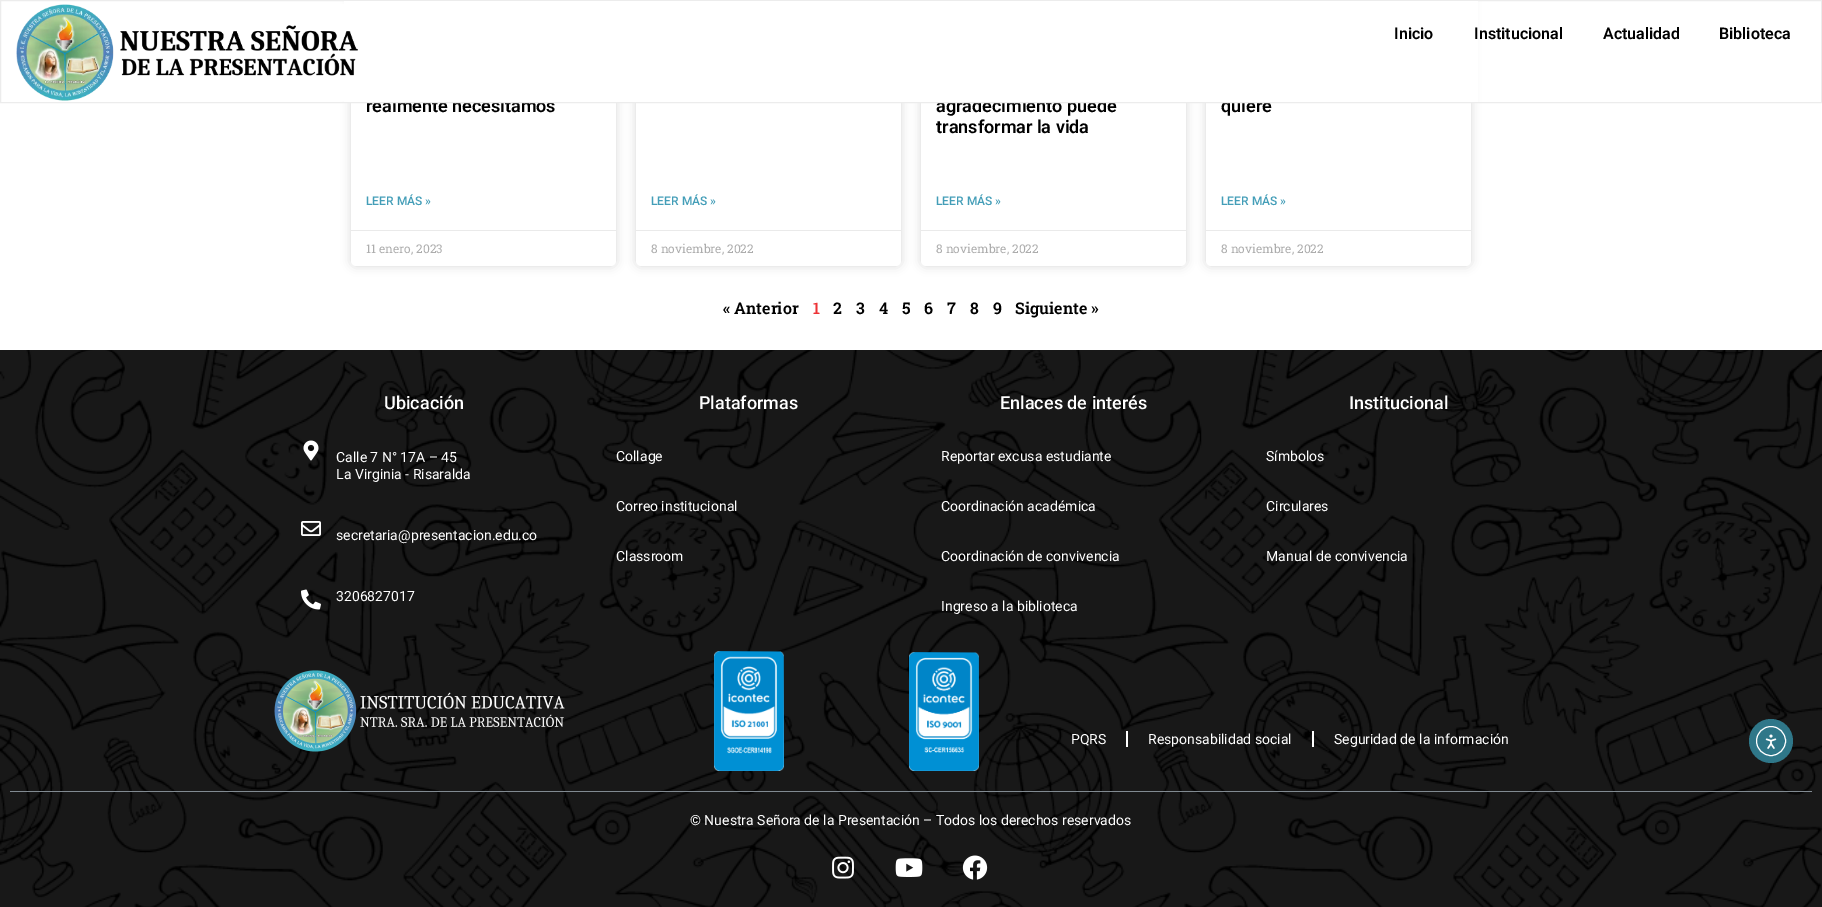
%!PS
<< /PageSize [1822 907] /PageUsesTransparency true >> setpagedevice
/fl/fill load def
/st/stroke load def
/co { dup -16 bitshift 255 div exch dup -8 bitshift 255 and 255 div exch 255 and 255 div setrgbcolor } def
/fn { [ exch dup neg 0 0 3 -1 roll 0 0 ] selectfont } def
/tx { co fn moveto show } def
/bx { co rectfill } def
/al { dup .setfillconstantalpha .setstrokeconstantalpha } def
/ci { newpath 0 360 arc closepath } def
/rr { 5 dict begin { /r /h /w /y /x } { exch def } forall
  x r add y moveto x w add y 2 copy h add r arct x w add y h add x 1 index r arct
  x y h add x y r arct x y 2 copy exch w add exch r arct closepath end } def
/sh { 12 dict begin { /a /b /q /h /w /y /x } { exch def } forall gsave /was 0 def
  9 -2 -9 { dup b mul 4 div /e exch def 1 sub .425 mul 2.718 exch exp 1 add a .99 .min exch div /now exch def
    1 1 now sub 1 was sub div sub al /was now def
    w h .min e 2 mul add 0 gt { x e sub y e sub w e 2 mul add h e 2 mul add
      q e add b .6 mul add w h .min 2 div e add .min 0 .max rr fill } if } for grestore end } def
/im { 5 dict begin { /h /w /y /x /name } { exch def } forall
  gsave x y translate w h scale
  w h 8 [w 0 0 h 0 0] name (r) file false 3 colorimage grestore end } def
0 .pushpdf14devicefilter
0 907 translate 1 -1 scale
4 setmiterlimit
0 0 1822 907 16#FFFFFF bx
16#000000 co
351 -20 265 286 5 5 .15 sh
16#FFFFFF co
351 -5 265 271 5 rr fl
351 230 265 1 16#EAEAEA bx
16#000000 co
636 -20 265 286 5 5 .15 sh
16#FFFFFF co
636 -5 265 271 5 rr fl
636 230 265 1 16#EAEAEA bx
16#000000 co
921 -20 265 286 5 5 .15 sh
16#FFFFFF co
921 -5 265 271 5 rr fl
921 230 265 1 16#EAEAEA bx
16#000000 co
1206 -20 265 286 5 5 .15 sh
16#FFFFFF co
1206 -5 265 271 5 rr fl
1206 230 265 1 16#EAEAEA bx
(media/2.raw) 0 350 1822 557 im
(media/3.raw) 303 440 16 21 im
(media/4.raw) 301 521 20 15 im
(media/5.raw) 301 589 20 21 im
(media/6.raw) 274 670 291 82 im
(media/7.raw) 714 651 70 120 im
(media/8.raw) 909 652 70 119 im
1126 731 2 16 16#FFFFFF bx
1312 731 2 16 16#FFFFFF bx
10 791 1802 1 16#818A91 bx
(media/9.raw) 832 856 22 23 im
(media/10.raw) 895 858 28 19 im
(media/11.raw) 962 855 26 25 im
16#2F7789 co
1771 741 22 ci fl
16#FFFFFF co
1771 741 14.5 ci st
(media/12.raw) 1765 734 12 15 im
(realmente necesitamos) 366 112 /Roboto-SemiBold 18 16#000000 tx
(LEER MÁS ») 366 205 /Roboto-Medium 12 16#449EB8 tx
(11 enero, 2023) 366 253 /RobotoSlab-Regular 12 16#ADADAD tx
(LEER MÁS ») 651 205 /Roboto-Medium 12 16#449EB8 tx
(8 noviembre, 2022) 651 253 /RobotoSlab-Regular 12 16#ADADAD tx
(agradecimiento puede) 936 112 /Roboto-SemiBold 18 16#000000 tx
(transformar la vida) 936 133 /Roboto-SemiBold 18 16#000000 tx
(LEER MÁS ») 936 205 /Roboto-Medium 12 16#449EB8 tx
(8 noviembre, 2022) 936 253 /RobotoSlab-Regular 12 16#ADADAD tx
(quiere) 1221 112 /Roboto-SemiBold 18 16#000000 tx
16#ECECEC co
.5 .5 1821 102 rectstroke
(Biblioteca) 1719 39 /Roboto-SemiBold 16 16#000000 tx
(Actualidad) 1603 39 /Roboto-SemiBold 16 16#000000 tx
344 1 1134 101 16#FFFFFF bx
(Institucional) 1474 39 /Roboto-SemiBold 16 16#000000 tx
(Inicio) 1394 39 /Roboto-SemiBold 16 16#000000 tx
(media/1.raw) 16 4 342 97 im
(LEER MÁS ») 1221 205 /Roboto-Medium 12 16#449EB8 tx
(8 noviembre, 2022) 1221 253 /RobotoSlab-Regular 12 16#ADADAD tx
(« Anterior) 723 314 /RobotoSlab-SemiBold 16 16#000000 tx
(1) 813 314 /RobotoSlab-SemiBold 16 16#ED3236 tx
(2) 833 314 /RobotoSlab-SemiBold 16 16#000000 tx
(3) 856 314 /RobotoSlab-SemiBold 16 16#000000 tx
(4) 879 314 /RobotoSlab-SemiBold 16 16#000000 tx
(5) 902 314 /RobotoSlab-SemiBold 16 16#000000 tx
(6) 924 314 /RobotoSlab-SemiBold 16 16#000000 tx
(7) 947 314 /RobotoSlab-SemiBold 16 16#000000 tx
(8) 970 314 /RobotoSlab-SemiBold 16 16#000000 tx
(9) 993 314 /RobotoSlab-SemiBold 16 16#000000 tx
(Siguiente ») 1015 314 /RobotoSlab-SemiBold 16 16#000000 tx
(Ubicación) 384 409 /Roboto-Medium 18 16#FFFFFF tx
(Plataformas) 699 409 /Roboto-Medium 18 16#FFFFFF tx
(Enlaces de interés) 1000 409 /Roboto-Medium 18 16#FFFFFF tx
(Institucional) 1349 409 /Roboto-Medium 18 16#FFFFFF tx
(Calle 7 N° 17A – 45) 336 462 /Roboto-Regular 14 16#FFFFFF tx
(La Virginia - Risaralda) 336 479 /Roboto-Regular 14 16#FFFFFF tx
(secretaria@presentacion.edu.co) 336 540 /Roboto-Regular 14 16#FFFFFF tx
(3206827017) 336 601 /Roboto-Regular 14 16#FFFFFF tx
(Collage) 616 461 /Roboto-Regular 14 16#FFFFFF tx
(Correo institucional) 616 511 /Roboto-Regular 14 16#FFFFFF tx
(Classroom) 616 561 /Roboto-Regular 14 16#FFFFFF tx
(Reportar excusa estudiante) 941 461 /Roboto-Regular 14 16#FFFFFF tx
(Coordinación académica) 941 511 /Roboto-Regular 14 16#FFFFFF tx
(Coordinación de convivencia) 941 561 /Roboto-Regular 14 16#FFFFFF tx
(Ingreso a la biblioteca) 941 611 /Roboto-Regular 14 16#FFFFFF tx
(Símbolos) 1266 461 /Roboto-Regular 14 16#FFFFFF tx
(Circulares) 1266 511 /Roboto-Regular 14 16#FFFFFF tx
(Manual de convivencia) 1266 561 /Roboto-Regular 14 16#FFFFFF tx
(PQRS) 1071 744 /Roboto-Regular 14 16#FFFFFF tx
(Responsabilidad social) 1148 744 /Roboto-Regular 14 16#FFFFFF tx
(Seguridad de la información) 1334 744 /Roboto-Regular 14 16#FFFFFF tx
(© Nuestra Señora de la Presentación – Todos los derechos reservados) 690 825 /Roboto-Regular 14 16#FFFFFF tx
.poppdf14devicefilter showpage
